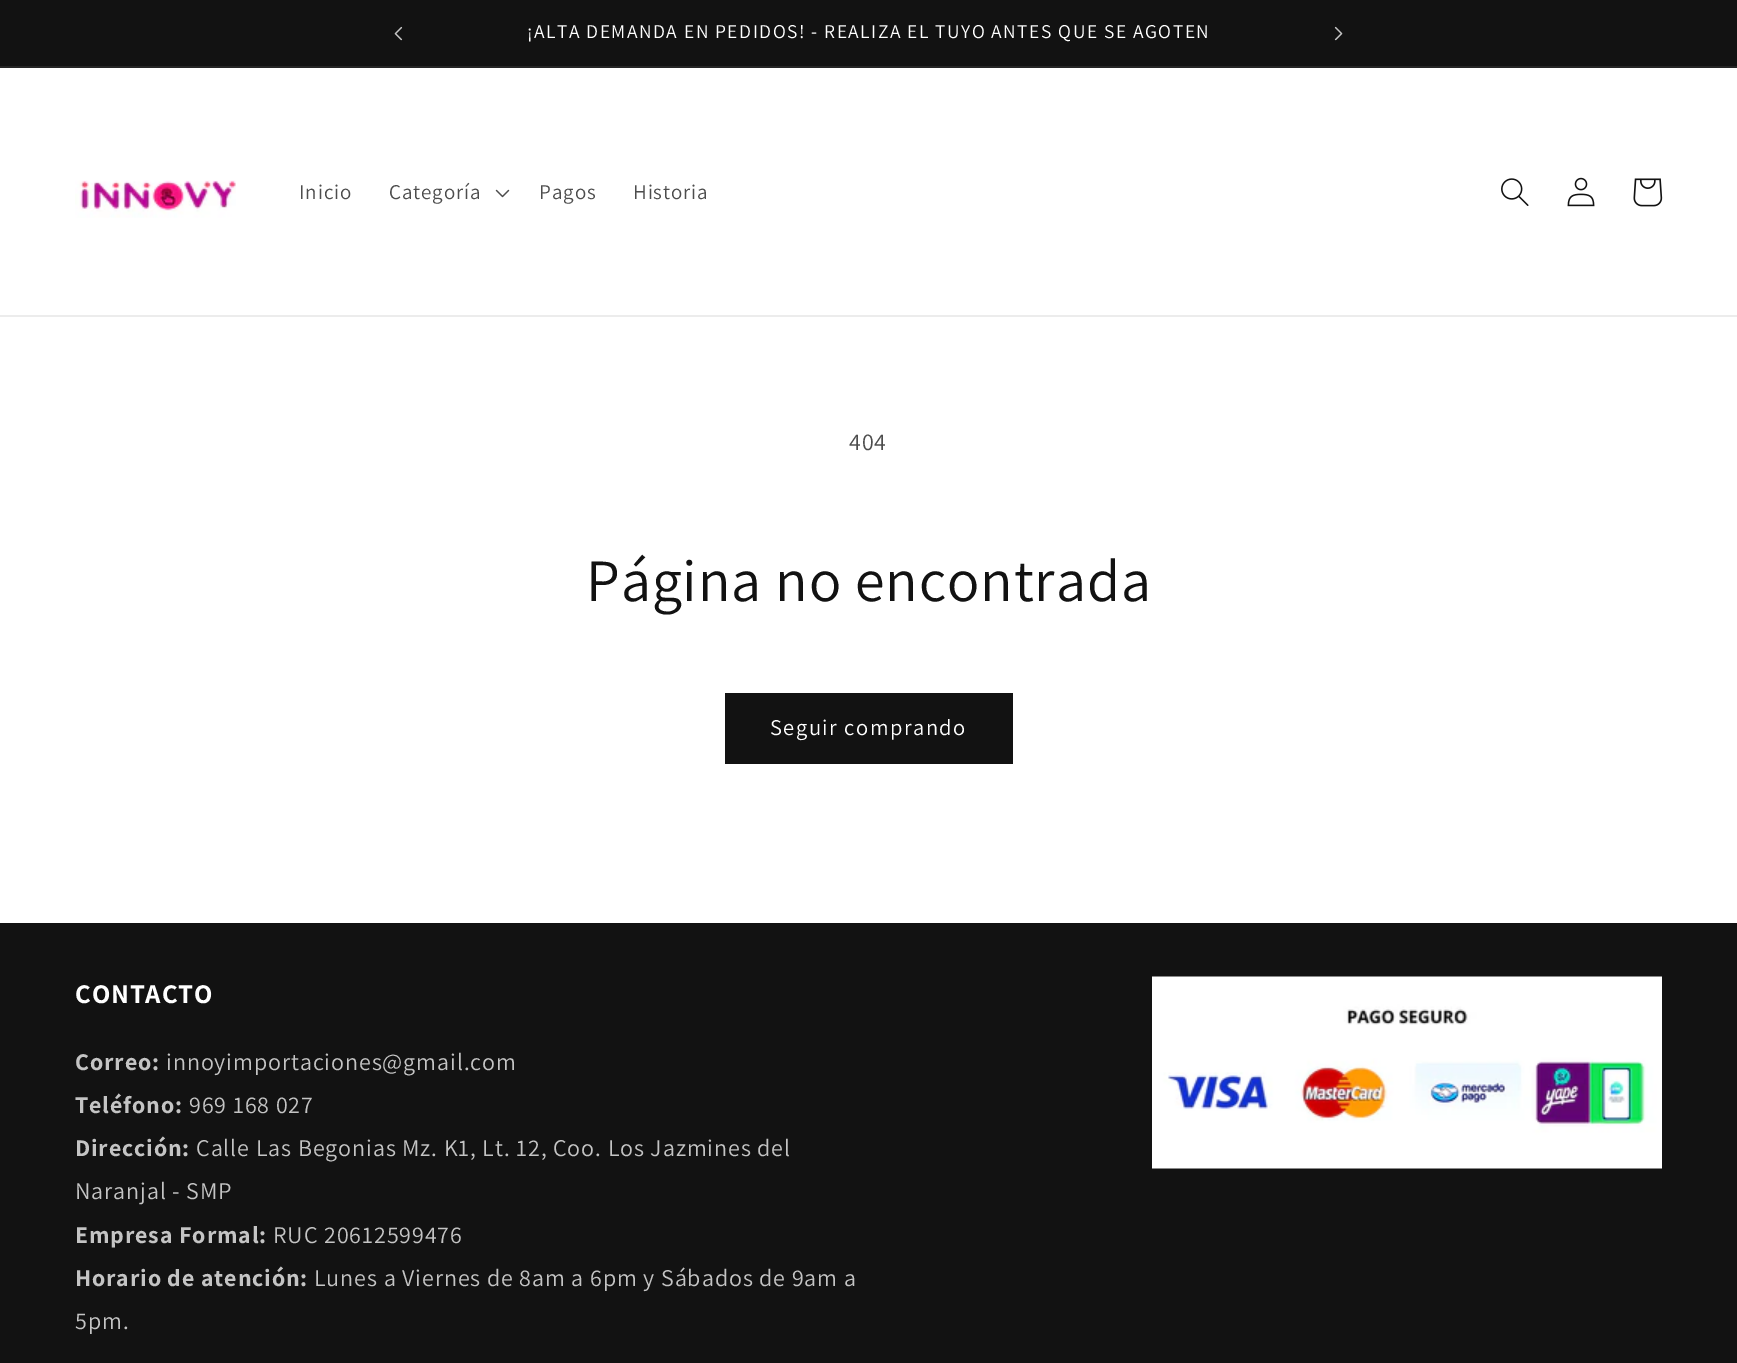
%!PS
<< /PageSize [1737 1363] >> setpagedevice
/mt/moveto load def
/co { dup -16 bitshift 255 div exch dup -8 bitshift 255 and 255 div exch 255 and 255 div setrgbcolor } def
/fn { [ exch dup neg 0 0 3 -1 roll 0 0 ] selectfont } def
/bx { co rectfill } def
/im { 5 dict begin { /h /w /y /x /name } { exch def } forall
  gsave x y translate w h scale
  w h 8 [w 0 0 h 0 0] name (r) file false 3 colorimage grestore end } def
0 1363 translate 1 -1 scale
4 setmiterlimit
0 0 1737 1363 16#FFFFFF bx
0 0 1737 66 16#121212 bx
0 66 1737 2 16#252525 bx
(media/1.raw) 394 26 9 15 im
(media/2.raw) 1334 26 9 15 im
0 315 1737 2 16#ECECEC bx
(media/3.raw) 75 180 161 38 im
(media/4.raw) 495 189 15 9 im
(media/5.raw) 1501 178 28 28 im
(media/6.raw) 1567 177 28 30 im
(media/7.raw) 1633 178 30 29 im
725 693 288 71 16#121212 bx
0 923 1737 440 16#121212 bx
(media/8.raw) 1152 976 510 193 im
/Assistant-Regular 19.5 fn
16#FFFFFF co
527 38 mt 1.5 0 (¡ALTA DEMANDA EN PEDIDOS! - REALIZA EL TUYO ANTES QUE SE AGOTEN) ashow
/Assistant-Regular 21 fn
16#4D4D4D co
299 199 mt .9 0 (Inicio) ashow
389 199 mt .9 0 (Categoría) ashow
539 199 mt .9 0 (Pagos) ashow
633 199 mt .9 0 (Historia) ashow
/Assistant-Regular 24 fn
849 450 mt .9 0 (404) ashow
/Assistant-Regular 60 fn
16#121212 co
586 601 mt .9 0 (Página no encontrada) ashow
/Assistant-Regular 22.5 fn
16#FFFFFF co
770 735 mt 1.5 0 (Seguir comprando) ashow
/Assistant-Bold 27 fn
75 1003 mt .9 0 (CONTACTO) ashow
/Assistant-Bold 24 fn
16#C4C4C4 co
75 1070 mt .9 0 (Correo:) ashow
/Assistant-Regular 24 fn
166 1070 mt .9 0 (innoyimportaciones@gmail.com) ashow
/Assistant-Bold 24 fn
75 1113 mt .9 0 (Teléfono:) ashow
/Assistant-Regular 24 fn
189 1113 mt .9 0 (969 168 027) ashow
/Assistant-Bold 24 fn
75 1156 mt .9 0 (Dirección:) ashow
/Assistant-Regular 24 fn
196 1156 mt .9 0 (Calle Las Begonias Mz. K1, Lt. 12, Coo. Los Jazmines del) ashow
75 1199 mt .9 0 (Naranjal - SMP) ashow
/Assistant-Bold 24 fn
75 1243 mt .9 0 (Empresa Formal:) ashow
/Assistant-Regular 24 fn
273 1243 mt .9 0 (RUC 20612599476) ashow
/Assistant-Bold 24 fn
75 1286 mt .9 0 (Horario de atención:) ashow
/Assistant-Regular 24 fn
314 1286 mt .9 0 (Lunes a Viernes de 8am a 6pm y Sábados de 9am a) ashow
75 1329 mt .9 0 (5pm.) ashow
showpage
